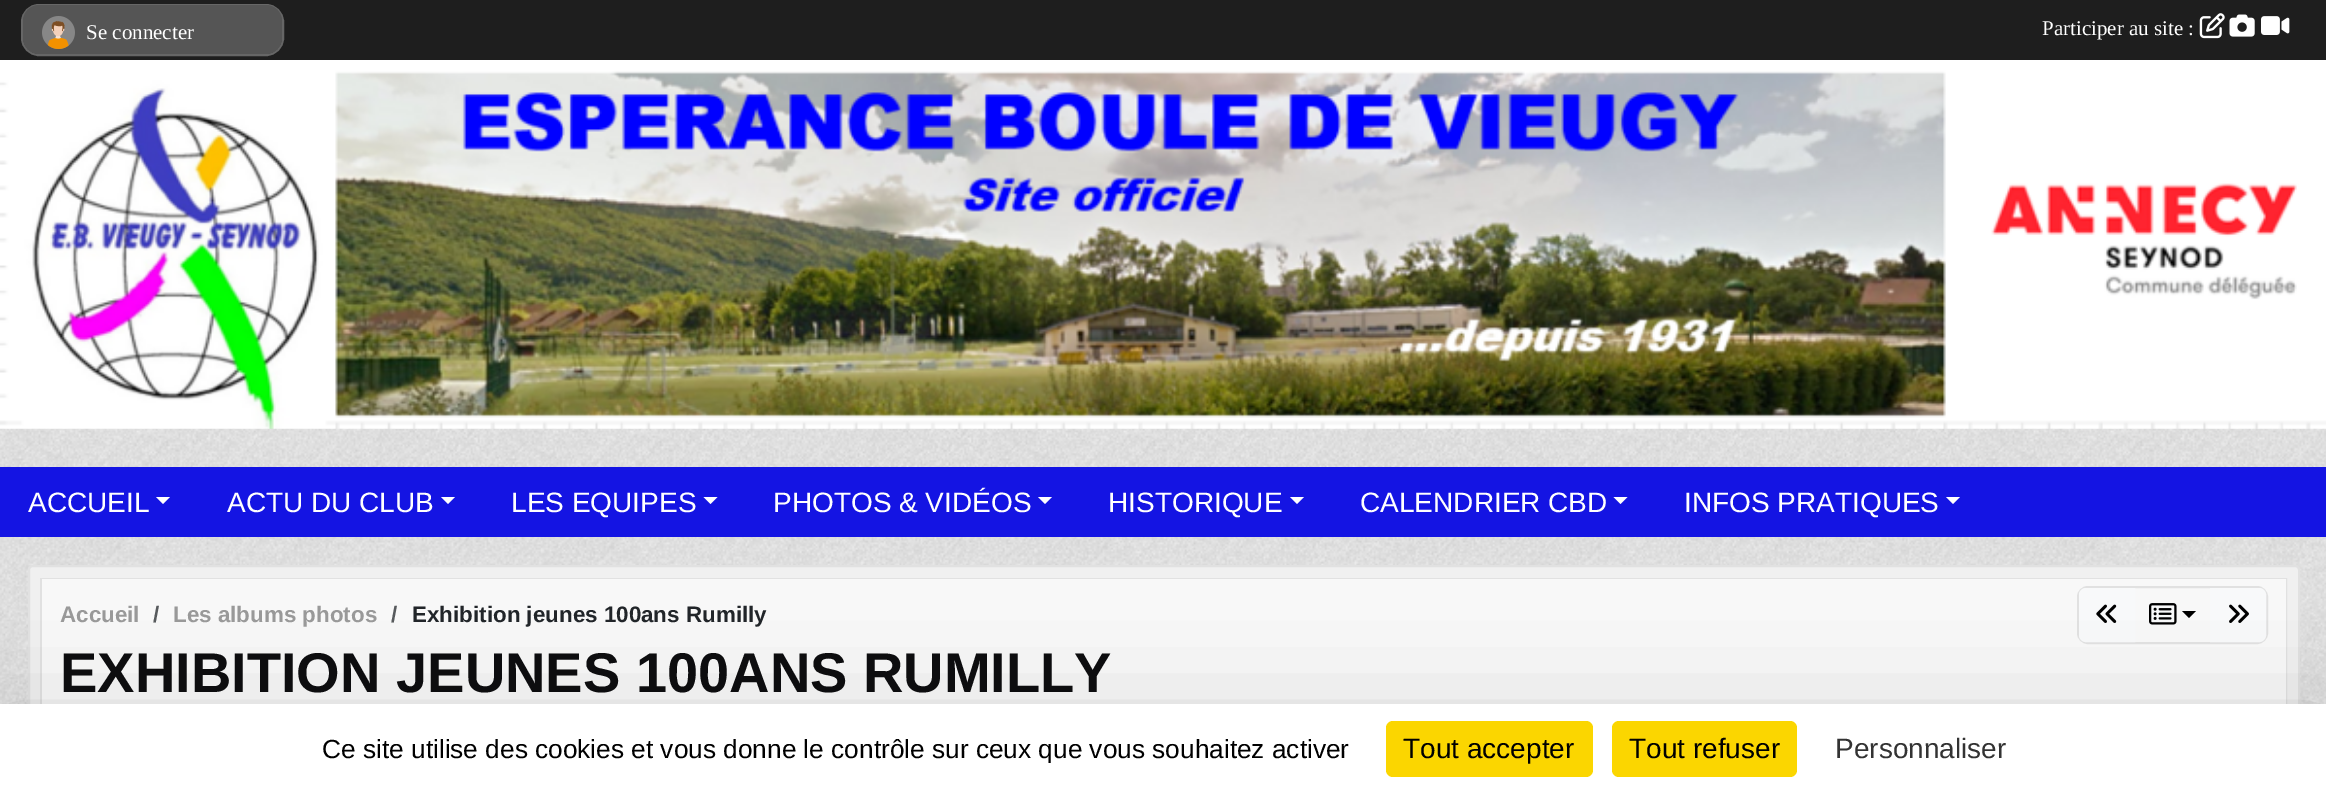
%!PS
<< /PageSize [2326 793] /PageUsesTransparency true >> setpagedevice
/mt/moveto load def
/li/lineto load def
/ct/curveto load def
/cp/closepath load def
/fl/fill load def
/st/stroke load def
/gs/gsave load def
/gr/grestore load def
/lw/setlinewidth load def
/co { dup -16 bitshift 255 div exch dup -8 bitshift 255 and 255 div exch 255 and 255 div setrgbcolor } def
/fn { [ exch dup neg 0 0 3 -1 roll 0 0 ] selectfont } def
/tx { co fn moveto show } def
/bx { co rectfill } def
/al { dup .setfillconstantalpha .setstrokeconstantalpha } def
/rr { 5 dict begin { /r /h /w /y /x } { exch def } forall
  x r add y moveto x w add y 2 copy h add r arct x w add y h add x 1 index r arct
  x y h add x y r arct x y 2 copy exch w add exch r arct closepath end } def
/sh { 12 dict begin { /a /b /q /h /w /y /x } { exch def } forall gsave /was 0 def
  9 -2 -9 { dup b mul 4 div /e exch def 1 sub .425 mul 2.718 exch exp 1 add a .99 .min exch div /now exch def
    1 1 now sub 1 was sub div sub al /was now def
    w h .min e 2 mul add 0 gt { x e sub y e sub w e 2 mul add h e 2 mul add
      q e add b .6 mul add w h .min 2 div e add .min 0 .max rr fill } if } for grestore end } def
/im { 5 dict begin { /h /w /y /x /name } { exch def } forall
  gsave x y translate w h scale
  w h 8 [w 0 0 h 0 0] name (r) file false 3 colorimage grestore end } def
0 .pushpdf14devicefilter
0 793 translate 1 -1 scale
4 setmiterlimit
0 0 2326 793 16#FFFFFF bx
(media/1.raw) 0 428 2326 276 im
0 0 2326 60 16#1E1E1E bx
16#666666 co
2 lw
22 5 261 50 17 rr st
16#555555 co
23 5 259 49 16 rr fl
(media/2.raw) 42 16 33 33 im
(media/3.raw) 2199 13 26 26 im
(media/4.raw) 2229 14 26 23 im
(media/5.raw) 2261 16 29 19 im
(media/6.raw) 0 60 2326 369 im
0 467 2326 70 16#1414E3 bx
16#FFFFFF co
156 497 mt 170 497 li 163 504 li cp fl
441 497 mt 455 497 li 448 504 li cp fl
703.5 497 mt 717.5 497 li 710.5 504 li cp fl
1038 497 mt 1052 497 li 1045 504 li cp fl
1290 497 mt 1304 497 li 1297 504 li cp fl
1613.5 497 mt 1627.5 497 li 1620.5 504 li cp fl
1946 497 mt 1960 497 li 1953 504 li cp fl
16#F0F0F0 co
29 566 2270 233 4 rr gs fl gr
16#E1E1E1 co
st
41 579 2245 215 rectstroke
42 579 2244 125 16#F8F8F8 bx
16#E1E1E1 co
2078 587 189 56 10 rr st
16#F8F9FA co
2086 589 mt 2134 589 li 2134 641 li 2086 641 li 2082.5 641 2080 638.5 2080 635 ct 2080 595 li 2080 591.5 2082.5 589 2086 589 ct cp gs fl gr
st
(media/7.raw) 2096 604 21 19 im
(media/8.raw) 2149 603 28 22 im
16#000000 co
2182 611 mt 2196 611 li 2189 618 li cp fl
16#F8F9FA co
2211 589 mt 2259 589 li 2262.5 589 2265 591.5 2265 595 ct 2265 635 li 2265 638.5 2262.5 641 2259 641 ct 2211 641 li cp gs fl gr
st
(media/9.raw) 2229 604 20 19 im
16#000000 co
0 739 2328 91 0 52.5 .25 sh
0 704 2326 89 16#FFFFFF bx
16#FBD600 co
1386 721 207 56 7 rr fl
1612 721 185 56 7 rr fl
(Se connecter) 86 39 /LiberationSerif-Regular 21 16#FFFFFF tx
(Participer au site :) 2042 35 /LiberationSerif-Regular 21 16#FFFFFF tx
(ACCUEIL) 28 512 /LiberationSans-Regular 28 16#FFFFFF tx
(ACTU DU CLUB) 227 512 /LiberationSans-Regular 28 16#FFFFFF tx
(LES EQUIPES) 511 512 /LiberationSans-Regular 28 16#FFFFFF tx
(PHOTOS & VIDÉOS) 773 512 /LiberationSans-Regular 28 16#FFFFFF tx
(HISTORIQUE) 1108 512 /LiberationSans-Regular 28 16#FFFFFF tx
(CALENDRIER CBD) 1360 512 /LiberationSans-Regular 28 16#FFFFFF tx
(INFOS PRATIQUES) 1684 512 /LiberationSans-Regular 28 16#FFFFFF tx
(Accueil) 60 622 /LiberationSans-Bold 22.4 16#999999 tx
(/) 153 622 /LiberationSans-Bold 22.4 16#575A5D tx
(Les albums photos) 173 622 /LiberationSans-Bold 22.4 16#999999 tx
(/) 391 622 /LiberationSans-Bold 22.4 16#575A5D tx
(Exhibition jeunes 100ans Rumilly) 412 622 /LiberationSans-Bold 22.4 16#212529 tx
(EXHIBITION JEUNES 100ANS RUMILLY) 60 692 /LiberationSans-Bold 56 16#0D0D0F tx
gs
305 733 1062 30 rectclip
(Ce site utilise des cookies et vous donne le contrôle sur ceux que vous souhaitez activer) 322 758 /LiberationSans-Regular 26.25 16#000000 tx
gr
(Tout accepter) 1403 758 /LiberationSans-Regular 28 16#000000 tx
(Tout refuser) 1629 758 /LiberationSans-Regular 28 16#000000 tx
(Personnaliser) 1835 758 /LiberationSans-Regular 28 16#333333 tx
.poppdf14devicefilter showpage
